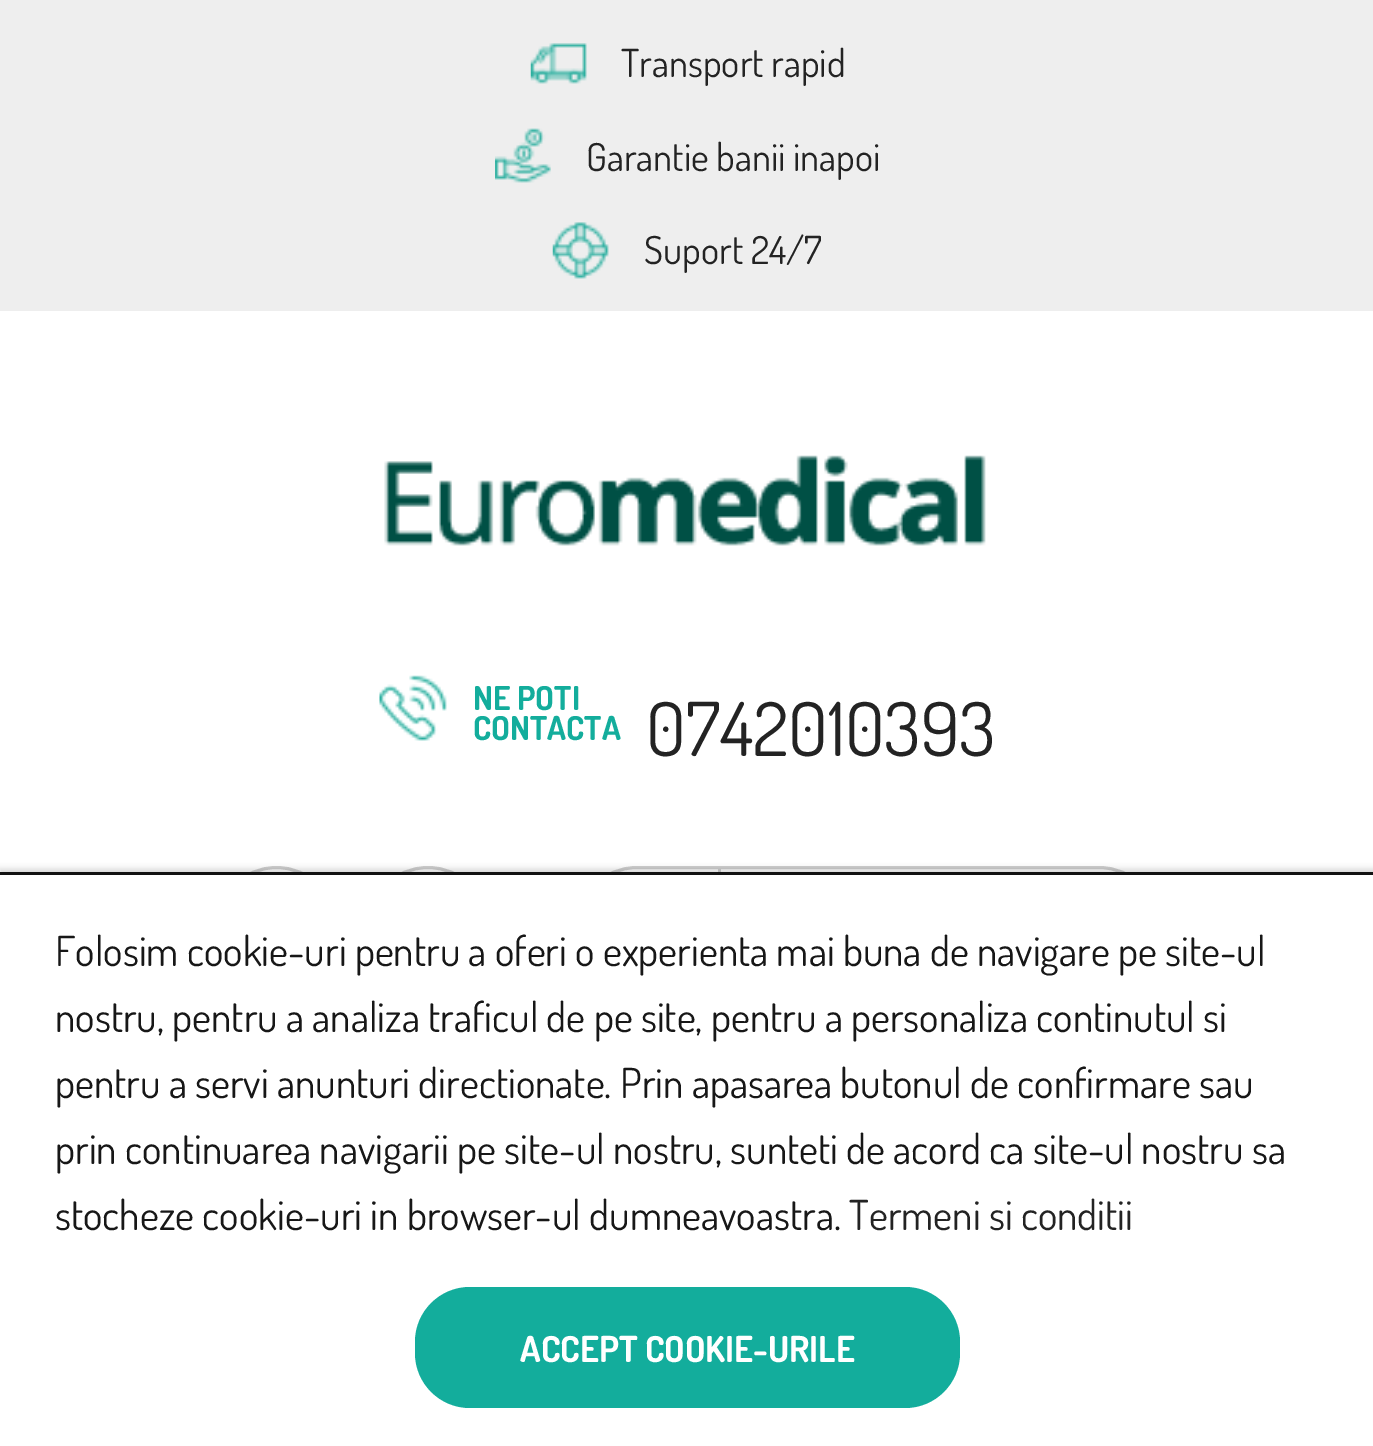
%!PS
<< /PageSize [1373 1446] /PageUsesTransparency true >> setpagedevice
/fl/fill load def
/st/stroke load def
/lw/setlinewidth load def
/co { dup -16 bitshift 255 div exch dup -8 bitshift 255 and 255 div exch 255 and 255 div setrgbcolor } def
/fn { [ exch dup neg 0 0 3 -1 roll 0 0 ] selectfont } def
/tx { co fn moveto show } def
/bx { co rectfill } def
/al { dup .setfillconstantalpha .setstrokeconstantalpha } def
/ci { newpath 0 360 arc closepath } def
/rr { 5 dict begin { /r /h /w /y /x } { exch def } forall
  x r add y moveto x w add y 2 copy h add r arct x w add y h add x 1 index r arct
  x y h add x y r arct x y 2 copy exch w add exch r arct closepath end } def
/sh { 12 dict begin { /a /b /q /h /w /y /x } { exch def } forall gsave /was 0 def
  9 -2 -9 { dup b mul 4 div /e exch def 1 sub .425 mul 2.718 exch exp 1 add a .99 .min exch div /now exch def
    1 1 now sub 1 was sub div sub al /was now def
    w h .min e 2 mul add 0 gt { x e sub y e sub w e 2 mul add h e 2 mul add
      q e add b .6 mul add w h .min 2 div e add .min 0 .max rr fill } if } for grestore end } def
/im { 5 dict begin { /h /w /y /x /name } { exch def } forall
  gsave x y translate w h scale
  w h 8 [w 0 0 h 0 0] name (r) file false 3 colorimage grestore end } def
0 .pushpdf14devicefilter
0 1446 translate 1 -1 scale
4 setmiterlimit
0 0 1373 1446 16#FFFFFF bx
0 0 1373 311 16#EEEEEE bx
(media/1.raw) 530 43 57 41 im
(media/2.raw) 495 128 56 55 im
(media/3.raw) 552 222 57 57 im
(media/4.raw) 384 455 602 91 im
(media/5.raw) 379 675 68 66 im
16#CCCCCC co
3 lw
216.5 867.5 120 121 60 rr st
428 928 60.5 ci st
576.5 867.5 583 121 60.5 rr st
718 869 3 3 16#CCCCCC bx
16#323232 co
0 869 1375 575 0 3 .2 sh
0 875 1373 571 16#FFFFFF bx
0 872 1373 3 16#121212 bx
16#13AD9C co
415 1287 545 121 55 rr fl
(Transport rapid) 621 77 /Dosis-Regular 38.5 16#232323 tx
(Garantie banii inapoi) 586 171 /Dosis-Regular 38.5 16#232323 tx
(Suport 24/7) 644 264 /Dosis-Regular 38.5 16#232323 tx
(NE POTI) 473 710 /Dosis-Bold 33 16#13AD9C tx
(CONTACTA) 473 740 /Dosis-Bold 33 16#13AD9C tx
(0742010393) 646 756 /Dosis-Regular 74.25 16#232323 tx
(Folosim cookie-uri pentru a oferi o experienta mai buna de navigare pe site-ul) 55 966 /Dosis-Regular 41.25 16#171717 tx
(nostru, pentru a analiza traficul de pe site, pentru a personaliza continutul si) 55 1032 /Dosis-Regular 41.25 16#171717 tx
(pentru a servi anunturi directionate. Prin apasarea butonul de confirmare sau) 55 1098 /Dosis-Regular 41.25 16#171717 tx
(prin continuarea navigarii pe site-ul nostru, sunteti de acord ca site-ul nostru sa) 55 1164 /Dosis-Regular 41.25 16#171717 tx
(stocheze cookie-uri in browser-ul dumneavoastra.) 55 1230 /Dosis-Regular 41.25 16#171717 tx
(Termeni si conditii) 849 1230 /Dosis-Regular 41.25 16#232323 tx
(ACCEPT COOKIE-URILE) 520 1362 /Dosis-Bold 35.75 16#FFFFFF tx
.poppdf14devicefilter showpage
